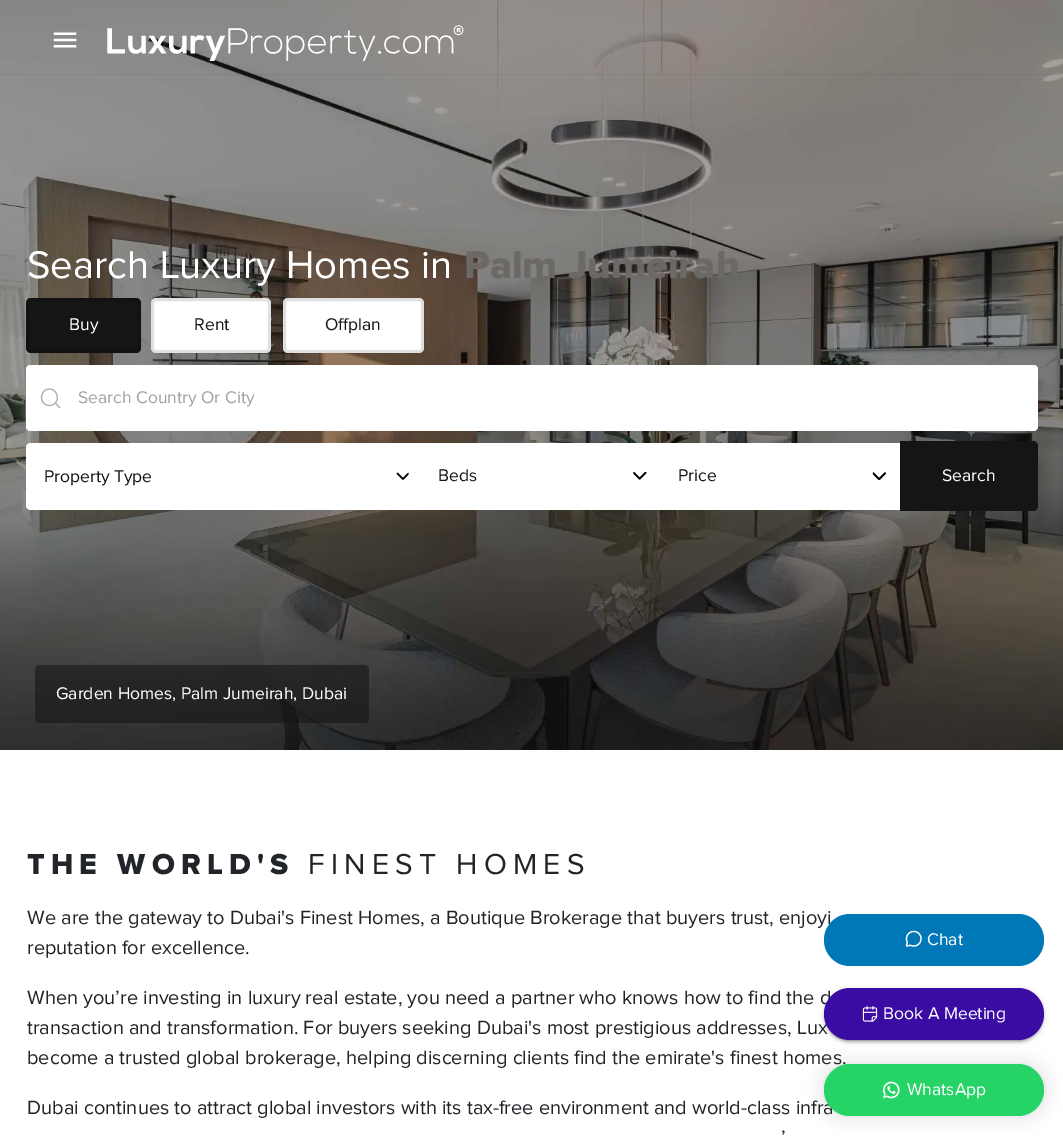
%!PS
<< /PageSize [1063 1136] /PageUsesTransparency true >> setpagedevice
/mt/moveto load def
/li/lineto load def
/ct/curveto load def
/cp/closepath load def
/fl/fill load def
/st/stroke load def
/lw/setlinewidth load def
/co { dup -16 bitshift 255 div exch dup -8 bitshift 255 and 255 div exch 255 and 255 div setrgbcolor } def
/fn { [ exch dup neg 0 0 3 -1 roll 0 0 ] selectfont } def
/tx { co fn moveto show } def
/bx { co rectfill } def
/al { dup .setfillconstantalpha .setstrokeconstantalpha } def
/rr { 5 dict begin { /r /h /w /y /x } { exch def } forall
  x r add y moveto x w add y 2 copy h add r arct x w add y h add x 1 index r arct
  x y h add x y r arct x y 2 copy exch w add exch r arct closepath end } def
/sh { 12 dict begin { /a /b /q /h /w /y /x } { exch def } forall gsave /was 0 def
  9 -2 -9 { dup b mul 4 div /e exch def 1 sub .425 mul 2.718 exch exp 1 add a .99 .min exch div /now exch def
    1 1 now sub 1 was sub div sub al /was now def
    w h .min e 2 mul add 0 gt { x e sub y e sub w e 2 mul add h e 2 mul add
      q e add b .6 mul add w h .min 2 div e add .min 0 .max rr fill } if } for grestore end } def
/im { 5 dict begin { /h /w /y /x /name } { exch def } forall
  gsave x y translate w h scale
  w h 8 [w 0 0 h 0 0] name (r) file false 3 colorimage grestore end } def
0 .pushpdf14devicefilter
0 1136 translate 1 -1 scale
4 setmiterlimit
0 0 1063 1136 16#FFFFFF bx
(media/3.raw) 0 0 1063 750 im
0.06 al
0 74 1063 1 16#141414 bx
1 al
(media/1.raw) 53 32 24 16 im
(media/2.raw) 107 25 357 36 im
16#151515 co
26 298 115 55 5 rr fl
0.12 al
16#000000 co
3 lw
27.5 299.5 112 52 3.5 rr st
1 al
16#FFFFFF co
151 298 120 55 5 rr fl
0.12 al
16#000000 co
152.5 299.5 117 52 3.5 rr st
1 al
16#FFFFFF co
283 298 141 55 5 rr fl
0.12 al
16#000000 co
284.5 299.5 138 52 3.5 rr st
1 al
16#FFFFFF co
26 365 1012 66 5 rr fl
31 365 mt 28 365 26 367 26 370 ct 26 426 li 26 429 28 431 31 431 ct 1033 431 li 1036 431 1038 429 1038 426 ct 1038 370 li 1038 367 1036 365 1033 365 ct cp 29 368 mt 29 428 li 1035 428 li 1035 368 li cp eofill
16#B3B3B3 co
1.2 lw
60 408 mt 55 402.5 li 49.5 405.5 mt 38.5 405.5 39 389 49.5 389 ct 60 389.5 60 405.5 49.5 405.5 ct cp st
16#FFFFFF co
31 443 mt 420 443 li 420 510 li 31 510 li 28 510 26 508 26 505 ct 26 448 li 26 445 28 443 31 443 ct cp fl
(media/4.raw) 396 472 13 8 im
420 443 480 67 16#FFFFFF bx
(media/5.raw) 633 472 14 8 im
(media/6.raw) 872 472 14 9 im
16#151515 co
900 441 mt 1033 441 li 1036 441 1038 443 1038 446 ct 1038 506 li 1038 509 1036 511 1033 511 ct 900 511 li cp fl
0.6 al
35 665 334 58 5 rr fl
1 al
16#000000 co
824 989 220 52 26 3 .12 sh
824 990 220 53 26.5 1 .14 sh
826 994 215 47 23.5 .5 .2 sh
(Search Luxury Homes in) 27 278 /ProximaNova-Regular 40 16#FFFFFF tx
(Palm Jumeirah) 464 278 /ProximaNova-ExtraBold 40 16#6B6865 tx
(Buy) 69 330 /ProximaNova-Regular 17.5 16#FFFFFF tx
(Rent) 194 330 /ProximaNova-Regular 17.5 16#151515 tx
(Offplan) 325 330 /ProximaNova-Regular 17.5 16#151515 tx
(Search Country Or City) 78 403 /ProximaNova-Regular 17.5 16#A2A2A2 tx
(Property Type) 44 482 /ProximaNova-Regular 17.5 16#151515 tx
(Beds) 438 481 /ProximaNova-Regular 17.5 16#151515 tx
(Price) 678 481 /ProximaNova-Regular 17.5 16#151515 tx
(Search) 942 481 /ProximaNova-Regular 17.5 16#FFFFFF tx
(Garden Homes, Palm Jumeirah, Dubai) 56 699 /ProximaNova-Regular 17.5 16#FFFFFF tx
/ProximaNova-ExtraBold 30 fn
16#212529 co
27 874 mt 6.25 0 (THE WORLD'S) ashow
/ProximaNova-Regular 30 fn
308 874 mt 6.25 0 (FINEST HOMES) ashow
(We are the gateway to Dubai's Finest Homes, a Boutique Brokerage that buyers trust, enjoyi) 27 924 /ProximaNova-Regular 20 16#212529 tx
(reputation for excellence.) 27 954 /ProximaNova-Regular 20 16#212529 tx
(When you’re investing in luxury real estate, you need a partner who knows how to find the d) 27 1004 /ProximaNova-Regular 20 16#212529 tx
(transaction and transformation. For buyers seeking Dubai's most prestigious addresses, Lux) 27 1034 /ProximaNova-Regular 20 16#212529 tx
(become a trusted global brokerage, helping discerning clients find the emirate's finest homes.) 27 1064 /ProximaNova-Regular 20 16#212529 tx
(Dubai continues to attract global investors with its tax-free environment and world-class infra) 27 1114 /ProximaNova-Regular 20 16#212529 tx
(’) 781 1144 /ProximaNova-Regular 20 16#212529 tx
16#0077B6 co
824 914 220 52 26 rr fl
(media/7.raw) 905 930 17 17 im
(Chat) 927 945 /ProximaNova-Regular 17.5 16#FFFFFF tx
16#3A0CA3 co
824 988 220 52 26 rr fl
(media/8.raw) 862 1006 16 16 im
(Book A Meeting) 883 1019 /ProximaNova-Regular 17.5 16#FFFFFF tx
16#141414 co
824 1064 220 52 26 9.5 .16 sh
16#25D366 co
824 1064 220 52 26 rr fl
(media/9.raw) 882 1081 18 18 im
(WhatsApp) 907 1095 /ProximaNova-Regular 17.5 16#FFFFFF tx
.poppdf14devicefilter showpage
